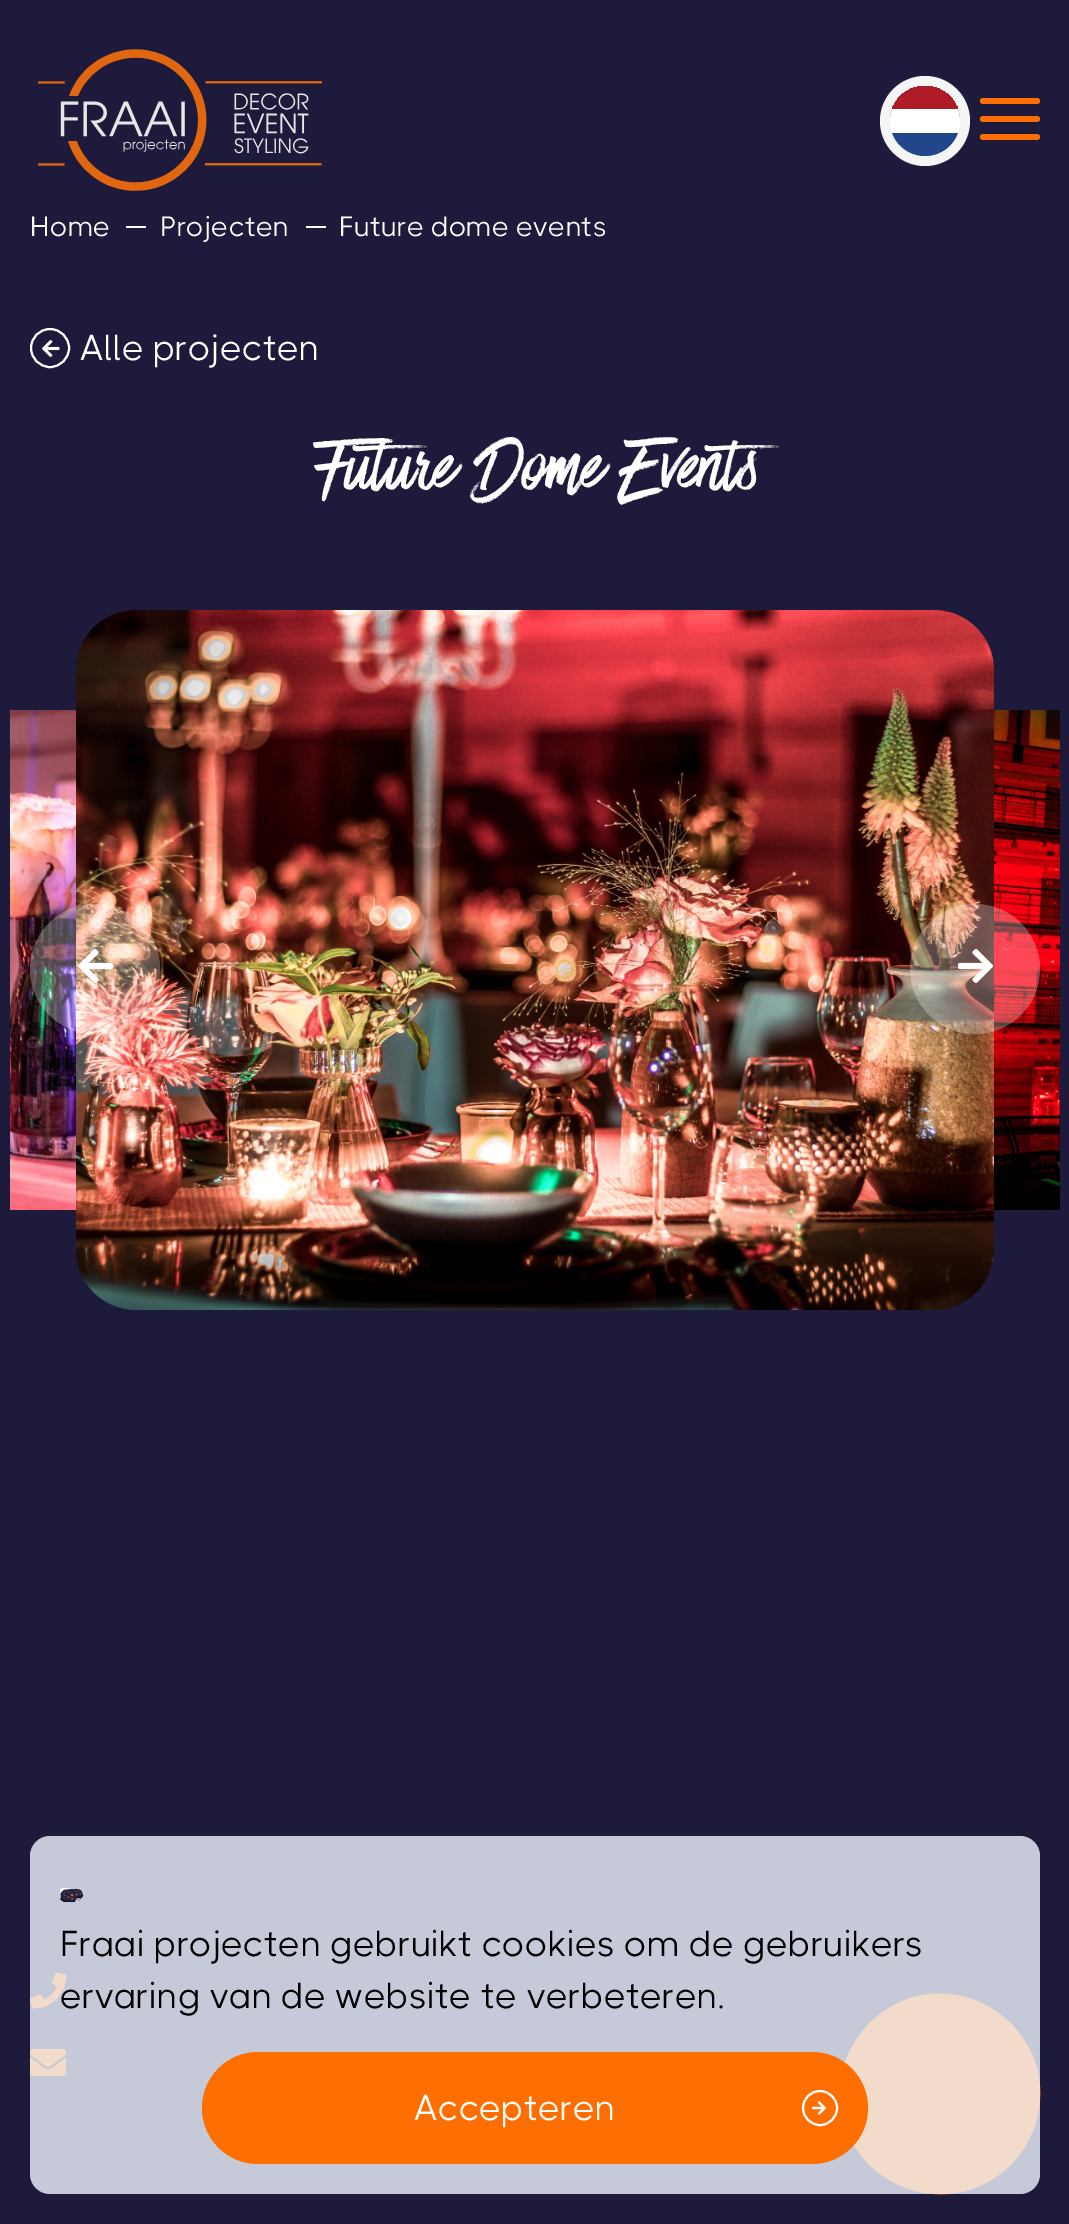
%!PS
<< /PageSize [1069 2224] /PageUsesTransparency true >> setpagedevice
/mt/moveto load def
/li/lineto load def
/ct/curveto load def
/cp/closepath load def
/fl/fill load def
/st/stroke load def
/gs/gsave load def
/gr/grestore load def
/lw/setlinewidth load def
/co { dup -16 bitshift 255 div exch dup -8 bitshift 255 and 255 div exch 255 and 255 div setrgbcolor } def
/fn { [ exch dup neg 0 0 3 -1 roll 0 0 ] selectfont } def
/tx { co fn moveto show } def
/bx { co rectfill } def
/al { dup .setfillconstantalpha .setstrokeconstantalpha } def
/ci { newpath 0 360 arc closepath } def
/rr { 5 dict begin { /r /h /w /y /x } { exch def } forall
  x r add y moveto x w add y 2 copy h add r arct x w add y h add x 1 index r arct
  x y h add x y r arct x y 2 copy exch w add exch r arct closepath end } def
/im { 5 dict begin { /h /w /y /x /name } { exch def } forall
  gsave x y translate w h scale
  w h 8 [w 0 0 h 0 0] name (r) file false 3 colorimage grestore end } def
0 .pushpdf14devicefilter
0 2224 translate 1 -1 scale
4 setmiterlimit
0 0 1069 2224 16#1E1A3B bx
(media/1.raw) 38 49 284 142 im
16#F5F5F5 co
925 121 45 ci fl
16#21468B co
925 121 35 ci fl
gs
890 86 70 70 35 rr clip newpath
16#FFFFFF co
925 86 mt 944.5 86 960 101.5 960 121 ct 960 133 li 890 133 li 890 121 li 890 101.5 905.5 86 925 86 ct cp fl
892 86 66 23 16#AE1C28 bx
gr
16#FF6E00 co
983 98 mt 1010 98 li 1010 104 li 983 104 li 981.5 104 980 102.5 980 101 ct 980 99.5 981.5 98 983 98 ct cp fl
1010 98 mt 1037 98 li 1038.5 98 1040 99.5 1040 101 ct 1040 102.5 1038.5 104 1037 104 ct 1010 104 li cp fl
983 116 mt 1010 116 li 1010 122 li 983 122 li 981.5 122 980 120.5 980 119 ct 980 117.5 981.5 116 983 116 ct cp fl
1010 116 mt 1037 116 li 1038.5 116 1040 117.5 1040 119 ct 1040 120.5 1038.5 122 1037 122 ct 1010 122 li cp fl
983 134 mt 1010 134 li 1010 140 li 983 140 li 981.5 140 980 138.5 980 137 ct 980 135.5 981.5 134 983 134 ct cp fl
1010 134 mt 1037 134 li 1038.5 134 1040 135.5 1040 137 ct 1040 138.5 1038.5 140 1037 140 ct 1010 140 li cp fl
126 226 20 2 16#FFFFFF bx
306 226 20 2 16#FFFFFF bx
2 lw
50 348 19 ci st
(media/2.raw) 42 340 18 17 im
(media/3.raw) 10 710 66 500 im
(media/4.raw) 76 610 918 700 im
(media/5.raw) 994 710 66 500 im
0.28 al
95 969 65 ci fl
1 al
(media/6.raw) 78 949 36 34 im
0.28 al
975 969 65 ci fl
1 al
(media/7.raw) 958 949 35 34 im
(media/8.raw) 30 1972 37 37 im
(media/9.raw) 30 2049 36 27 im
16#FF6E00 co
914 1997 mt 967 1983 1022 2015 1037 2068 ct 1051 2121 1019 2176 966 2191 ct 913 2205 858 2173 843 2120 ct 829 2067 861 2012 914 1997 ct cp fl
0.8 al
16#F0F6FF co
30 1836 1010 358 20 rr fl
1 al
(media/10.raw) 60 1888 24 14 im
16#FF6E00 co
202 2052 666 112 56 rr fl
16#FFFFFF co
820 2108 17 ci st
(media/11.raw) 812 2101 14 14 im
(Home) 30 236 /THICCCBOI-Regular 28 16#FFFFFF tx
(Projecten) 160 236 /THICCCBOI-Regular 28 16#FFFFFF tx
(Future dome events) 339 236 /THICCCBOI-Regular 28 16#FFFFFF tx
(Alle projecten) 80 360 /THICCCBOI-Regular 36 16#FFFFFF tx
(Future Dome Events) 314 488 /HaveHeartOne-Regular 84 16#FFFFFF tx
(Fraai projecten gebruikt cookies om de gebruikers) 60 1956 /THICCCBOI-Regular 36 16#000000 tx
(ervaring van de website te verbeteren.) 60 2008 /THICCCBOI-Regular 36 16#000000 tx
(Accepteren) 414 2120 /THICCCBOI-Regular 36 16#FFFFFF tx
.poppdf14devicefilter showpage
